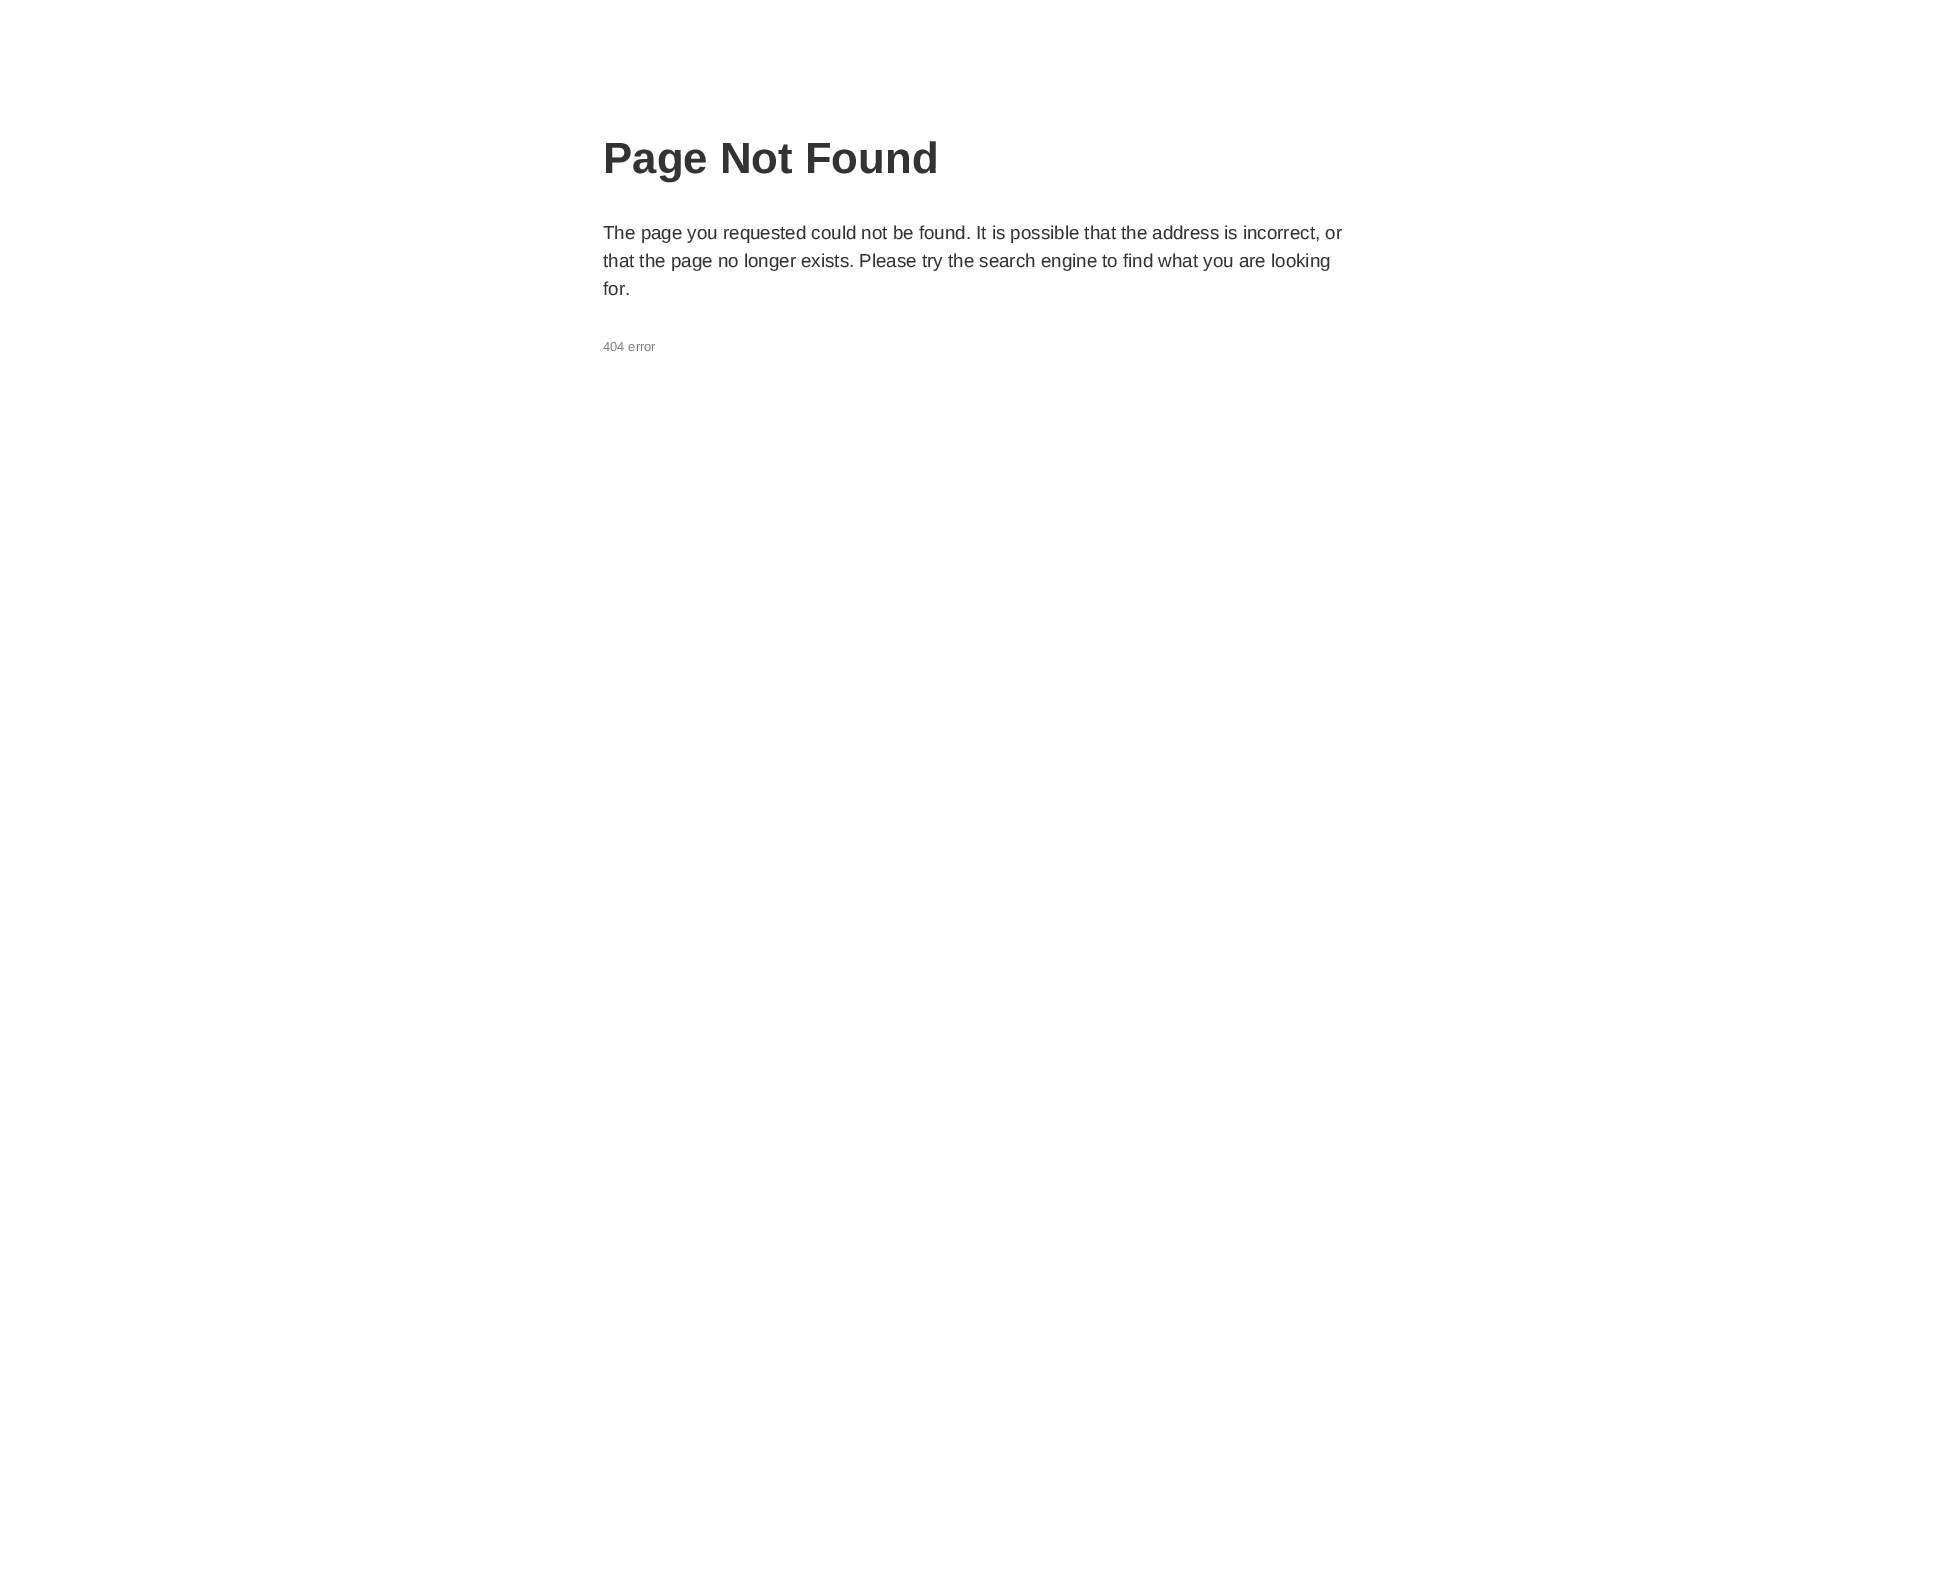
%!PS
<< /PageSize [1955 1595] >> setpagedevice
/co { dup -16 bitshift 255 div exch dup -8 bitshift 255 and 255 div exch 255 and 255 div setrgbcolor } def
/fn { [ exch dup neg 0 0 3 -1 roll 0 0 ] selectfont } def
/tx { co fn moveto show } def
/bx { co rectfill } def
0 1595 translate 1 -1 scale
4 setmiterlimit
0 0 1955 1595 16#FFFFFF bx
(Page Not Found) 603 173 /LiberationSans-Bold 43.75 16#333333 tx
(The page you requested could not be found. It is possible that the address is incorrect, or) 603 239 /LiberationSans-Regular 18.75 16#333333 tx
(that the page no longer exists. Please try the search engine to find what you are looking) 603 267 /LiberationSans-Regular 18.75 16#333333 tx
(for.) 603 295 /LiberationSans-Regular 18.75 16#333333 tx
(404 error) 603 351 /LiberationSans-Regular 13 16#808080 tx
showpage
